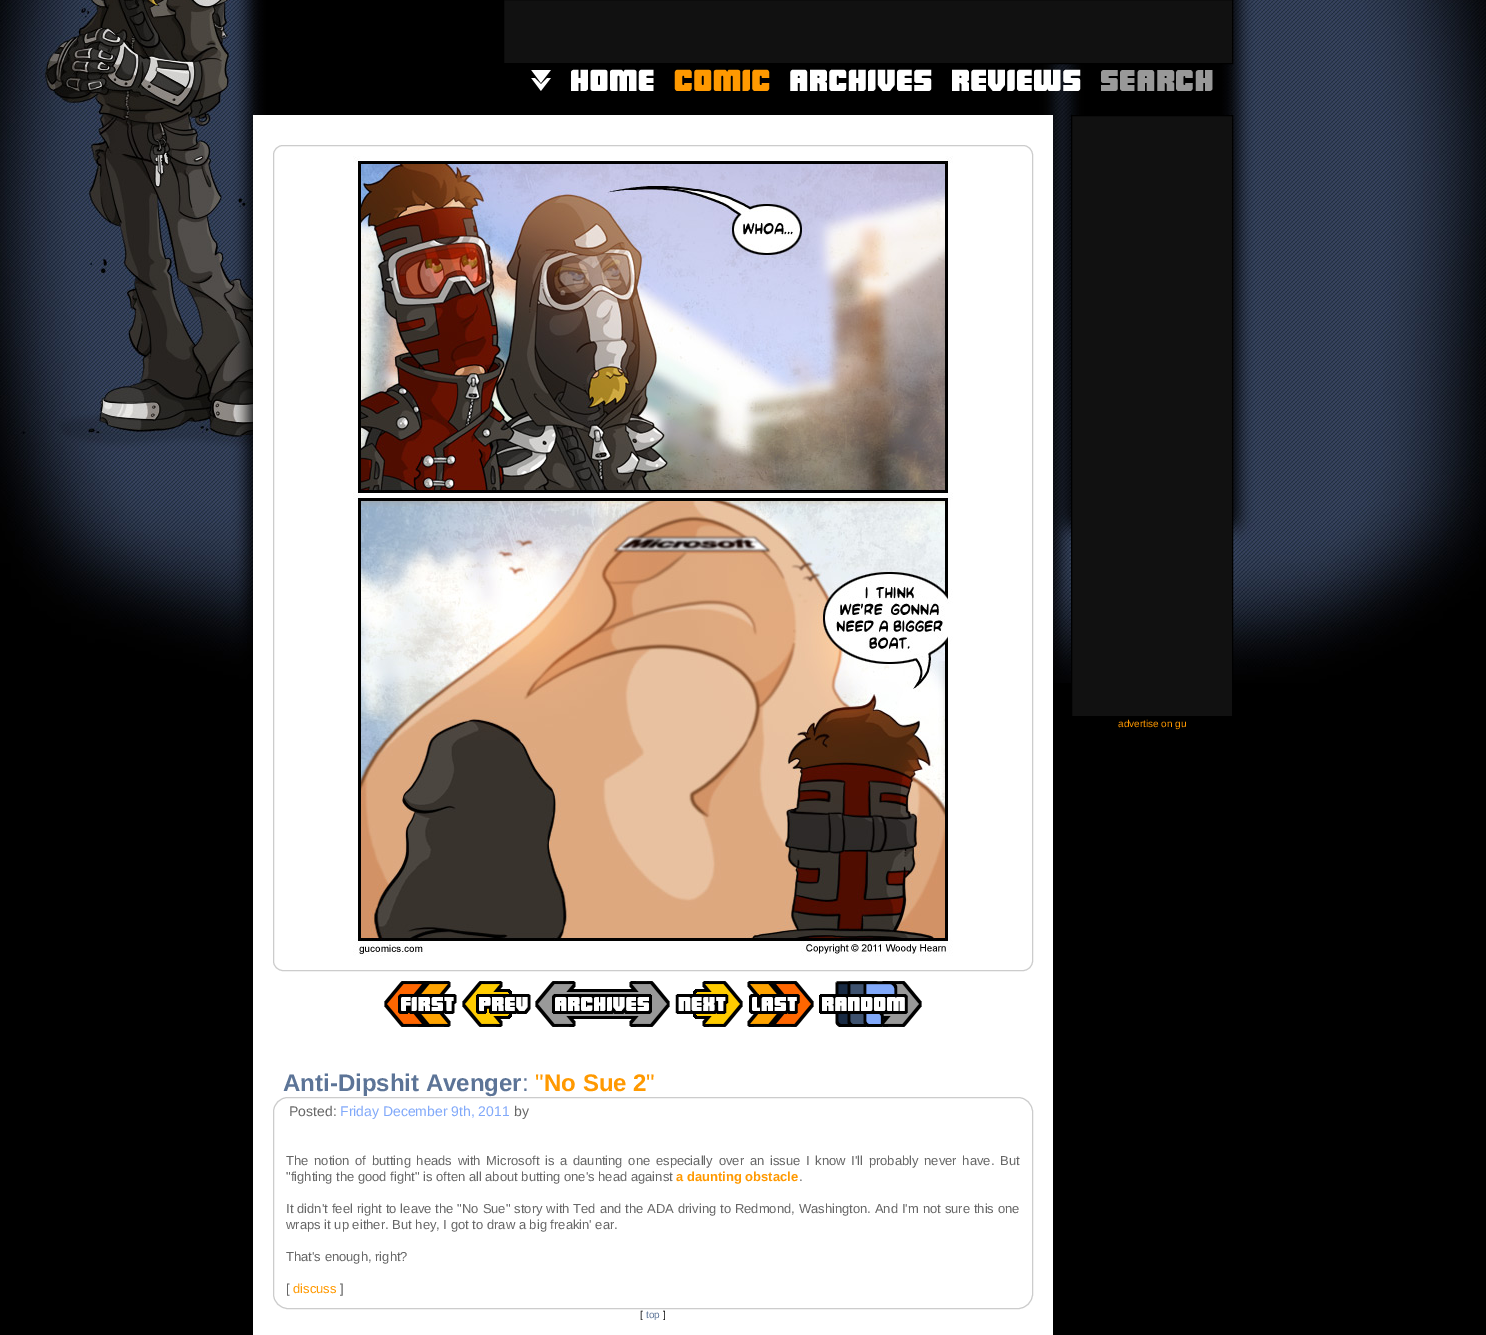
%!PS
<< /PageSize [1486 1335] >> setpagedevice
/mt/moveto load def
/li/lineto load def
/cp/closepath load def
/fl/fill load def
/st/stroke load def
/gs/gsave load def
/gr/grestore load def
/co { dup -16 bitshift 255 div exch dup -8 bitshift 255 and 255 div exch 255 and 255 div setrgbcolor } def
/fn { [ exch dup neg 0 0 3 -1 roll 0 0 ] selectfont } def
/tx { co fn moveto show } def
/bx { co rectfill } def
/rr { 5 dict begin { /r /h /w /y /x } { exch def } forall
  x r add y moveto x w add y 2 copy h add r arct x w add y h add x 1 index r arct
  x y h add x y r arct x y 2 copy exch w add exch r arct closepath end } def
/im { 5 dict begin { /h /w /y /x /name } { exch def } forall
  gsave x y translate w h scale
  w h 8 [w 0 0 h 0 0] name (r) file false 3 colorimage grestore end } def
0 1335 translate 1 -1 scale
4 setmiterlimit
0 0 1486 1335 16#000000 bx
(media/1.raw) 0 0 1486 683 im
16#111111 co
503.5 -.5 mt 1232.5 -.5 li 1232.5 63.5 li 503.5 63.5 li cp gs fl gr
16#000000 co
st
(media/2.raw) 531 70 20 21 im
(media/3.raw) 571 69 83 22 im
(media/4.raw) 674 69 96 22 im
(media/5.raw) 790 69 142 22 im
(media/6.raw) 952 69 129 22 im
(media/7.raw) 1101 70 112 21 im
16#111111 co
1071.5 115.5 mt 1232.5 115.5 li 1232.5 716.5 li 1071.5 716.5 li cp gs fl gr
16#000000 co
st
253 115 800 1220 16#FFFFFF bx
16#CCCCCC co
273.5 145.5 759 825 9.5 rr st
(media/8.raw) 353 156 600 800 im
(media/9.raw) 384 981 73 46 im
(media/10.raw) 462 981 69 46 im
(media/11.raw) 535 981 135 46 im
(media/12.raw) 675 981 68 46 im
(media/13.raw) 747 981 67 46 im
(media/14.raw) 819 981 103 46 im
273.5 1097.5 759 211 14.5 rr st
(advertise on gu) 1118 727 /LiberationSans-Regular 10 16#FF9900 tx
(Anti-Dipshit Avenger) 283 1091 /LiberationSans-Bold 24 16#5C7497 tx
(") 535 1091 /LiberationSans-Regular 24 16#FF9900 tx
(No Sue 2) 544 1091 /LiberationSans-Bold 24 16#FF9900 tx
(") 646 1091 /LiberationSans-Regular 24 16#FF9900 tx
(:) 522 1091 /LiberationSans-Regular 24 16#5C7497 tx
(Posted:) 289 1116 /LiberationSans-Regular 14 16#666666 tx
(Friday December 9th, 2011) 340 1116 /LiberationSans-Regular 14 16#81A9FA tx
(by) 514 1116 /LiberationSans-Regular 14 16#666666 tx
/LiberationSans-Regular 13 fn
286 1165 mt 2.1 0 32 (The notion of butting heads with Microsoft is a daunting one especially over an issue I know I'll probably never have. But) widthshow
("fighting the good fight" is often all about butting one's head against) 286 1181 /LiberationSans-Regular 13 16#666666 tx
(a daunting obstacle) 676 1181 /LiberationSans-Bold 13 16#FF9900 tx
(.) 799 1181 /LiberationSans-Regular 13 16#666666 tx
286 1213 mt .3 0 32 (It didn't feel right to leave the "No Sue" story with Ted and the ADA driving to Redmond, Washington. And I'm not sure this one) widthshow
(wraps it up either. But hey, I got to draw a big freakin' ear.) 286 1229 /LiberationSans-Regular 13 16#666666 tx
(That's enough, right?) 286 1261 /LiberationSans-Regular 13 16#666666 tx
([) 286 1293 /LiberationSans-Regular 13 16#666666 tx
(discuss) 293 1293 /LiberationSans-Regular 13 16#FF9900 tx
(]) 340 1293 /LiberationSans-Regular 13 16#666666 tx
([) 640 1318 /LiberationSans-Regular 10 16#000000 tx
(top) 646 1318 /LiberationSans-Regular 10 16#5C7497 tx
(]) 663 1318 /LiberationSans-Regular 10 16#000000 tx
showpage
